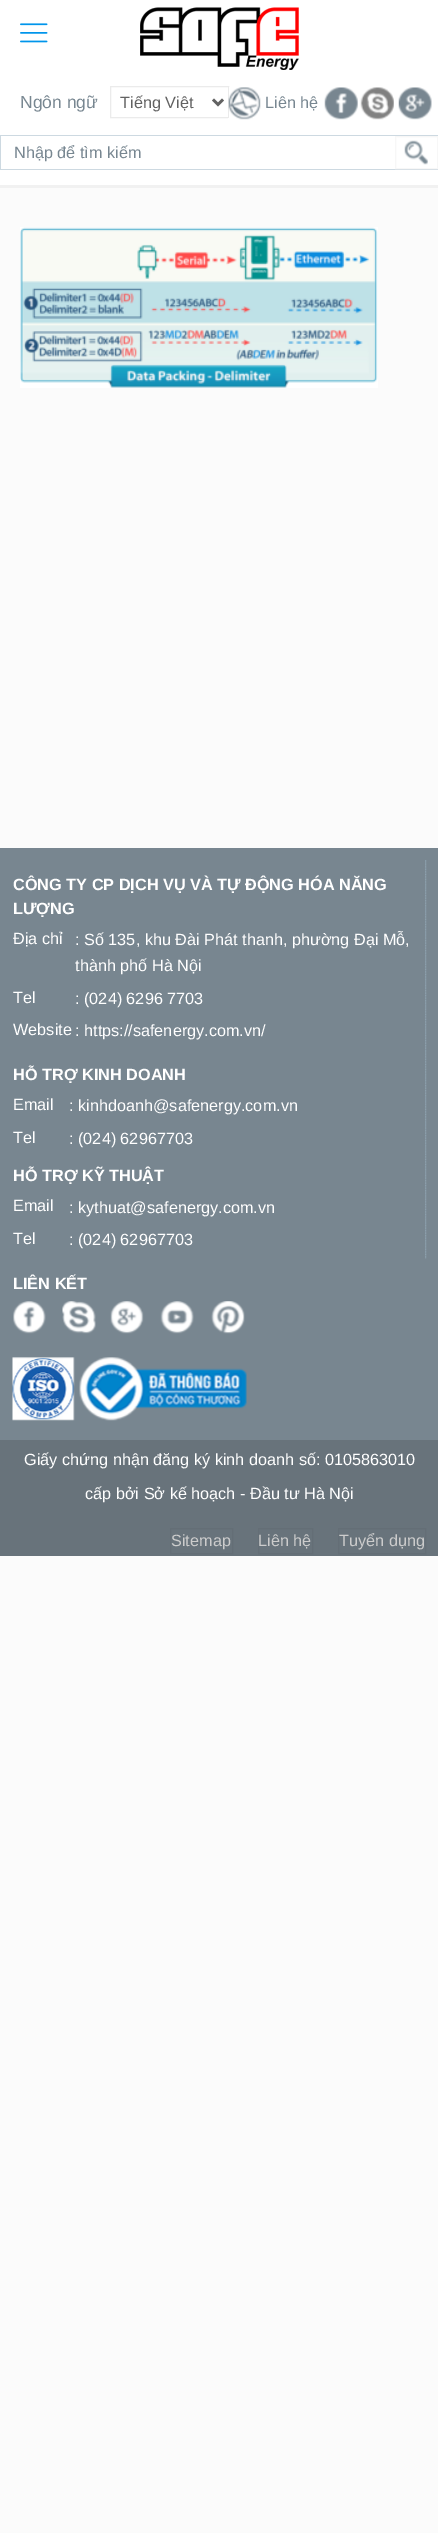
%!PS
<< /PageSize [438 2533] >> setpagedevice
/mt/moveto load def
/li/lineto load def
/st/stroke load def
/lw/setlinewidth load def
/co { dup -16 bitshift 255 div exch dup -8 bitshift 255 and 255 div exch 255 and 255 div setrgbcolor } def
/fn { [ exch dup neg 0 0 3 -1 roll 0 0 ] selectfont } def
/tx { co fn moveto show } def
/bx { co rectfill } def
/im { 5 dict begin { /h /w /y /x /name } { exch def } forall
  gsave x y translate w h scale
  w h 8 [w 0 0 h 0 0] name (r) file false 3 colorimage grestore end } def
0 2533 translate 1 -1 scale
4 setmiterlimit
0 0 438 2533 16#FBFBFB bx
0 0 438 185 16#FFFFFF bx
(media/1.raw) 20 23 28 20 im
(media/2.raw) 140 7 159 63 im
16#EBEBEB co
110.5 86.5 118 31 rectstroke
16#626262 co
2.5 lw
213 99.5 mt 218 104.5 li 223 99.5 li st
(media/3.raw) 228 87 33 33 im
(media/4.raw) 324 87 34 33 im
(media/5.raw) 360 87 34 33 im
(media/6.raw) 398 87 34 33 im
0 135 438 1 16#CDD9E1 bx
0 169 438 1 16#CDD9E1 bx
0 135 1 35 16#CDD9E1 bx
(media/7.raw) 404 140 24 25 im
16#F7F7F7 co
1 lw
395.5 136.5 42 32 rectstroke
0 185 438 3 16#F1F1F1 bx
(media/8.raw) 20 227 358 161 im
0 848 438 592 16#788690 bx
(media/9.raw) 425 860 2 190 im
(media/10.raw) 425 1050 2 209 im
(media/11.raw) 13 1301 33 33 im
(media/12.raw) 62 1301 34 33 im
(media/13.raw) 110 1301 34 33 im
(media/14.raw) 160 1301 34 33 im
(media/15.raw) 211 1301 34 33 im
(media/16.raw) 12 1357 63 64 im
(media/17.raw) 79 1357 168 64 im
0 1440 438 116 16#68737B bx
16#646E76 co
170.5 1528.5 62 25 rectstroke
258.5 1528.5 54 25 rectstroke
338.5 1528.5 87 25 rectstroke
(Ngôn ngữ) 20 108 /LiberationSans-Regular 17.5 16#788791 tx
(Tiếng Việt) 120 108 /LiberationSans-Regular 16.25 16#626262 tx
(Liên hệ) 265 108 /LiberationSans-Regular 16.25 16#788791 tx
(Nhập để tìm kiếm) 14 158 /LiberationSans-Regular 16.25 16#788791 tx
(CÔNG TY CP DỊCH VỤ VÀ TỰ ĐỘNG HÓA NĂNG) 13 890 /LiberationSans-Bold 16.25 16#FFFFFF tx
(LƯỢNG) 13 914 /LiberationSans-Bold 16.25 16#FFFFFF tx
(Địa chỉ) 13 944 /LiberationSans-Regular 16.25 16#FFFFFF tx
(: Số 135, khu Đài Phát thanh, phường Đại Mỗ,) 75 945 /LiberationSans-Regular 16.25 16#FFFFFF tx
(thành phố Hà Nội) 75 971 /LiberationSans-Regular 16.25 16#FFFFFF tx
(Tel) 13 1003 /LiberationSans-Regular 16.25 16#FFFFFF tx
(: \(024\) 6296 7703) 75 1004 /LiberationSans-Regular 16.25 16#FFFFFF tx
(Website) 13 1035 /LiberationSans-Regular 16.25 16#FFFFFF tx
(: https://safenergy.com.vn/) 75 1036 /LiberationSans-Regular 16.25 16#FFFFFF tx
(HỖ TRỢ KINH DOANH) 13 1080 /LiberationSans-Bold 16.25 16#FFFFFF tx
(Email) 13 1110 /LiberationSans-Regular 16.25 16#FFFFFF tx
(: kinhdoanh@safenergy.com.vn) 69 1111 /LiberationSans-Regular 16.25 16#FFFFFF tx
(Tel) 13 1143 /LiberationSans-Regular 16.25 16#FFFFFF tx
(: \(024\) 62967703) 69 1144 /LiberationSans-Regular 16.25 16#FFFFFF tx
(HỖ TRỢ KỸ THUẬT) 13 1181 /LiberationSans-Bold 16.25 16#FFFFFF tx
(Email) 13 1211 /LiberationSans-Regular 16.25 16#FFFFFF tx
(: kythuat@safenergy.com.vn) 69 1213 /LiberationSans-Regular 16.25 16#FFFFFF tx
(Tel) 13 1244 /LiberationSans-Regular 16.25 16#FFFFFF tx
(: \(024\) 62967703) 69 1245 /LiberationSans-Regular 16.25 16#FFFFFF tx
(LIÊN KẾT) 13 1289 /LiberationSans-Bold 16.25 16#FFFFFF tx
(Giấy chứng nhận đăng ký kinh doanh số: 0105863010) 24 1465 /LiberationSans-Regular 16.25 16#FFFFFF tx
(cấp bởi Sở kế hoạch - Đầu tư Hà Nội) 85 1499 /LiberationSans-Regular 16.25 16#FFFFFF tx
(Sitemap) 171 1546 /LiberationSans-Regular 16.25 16#CCCCCC tx
(Liên hệ) 258 1546 /LiberationSans-Regular 16.25 16#CCCCCC tx
(Tuyển dụng) 339 1546 /LiberationSans-Regular 16.25 16#CCCCCC tx
showpage
